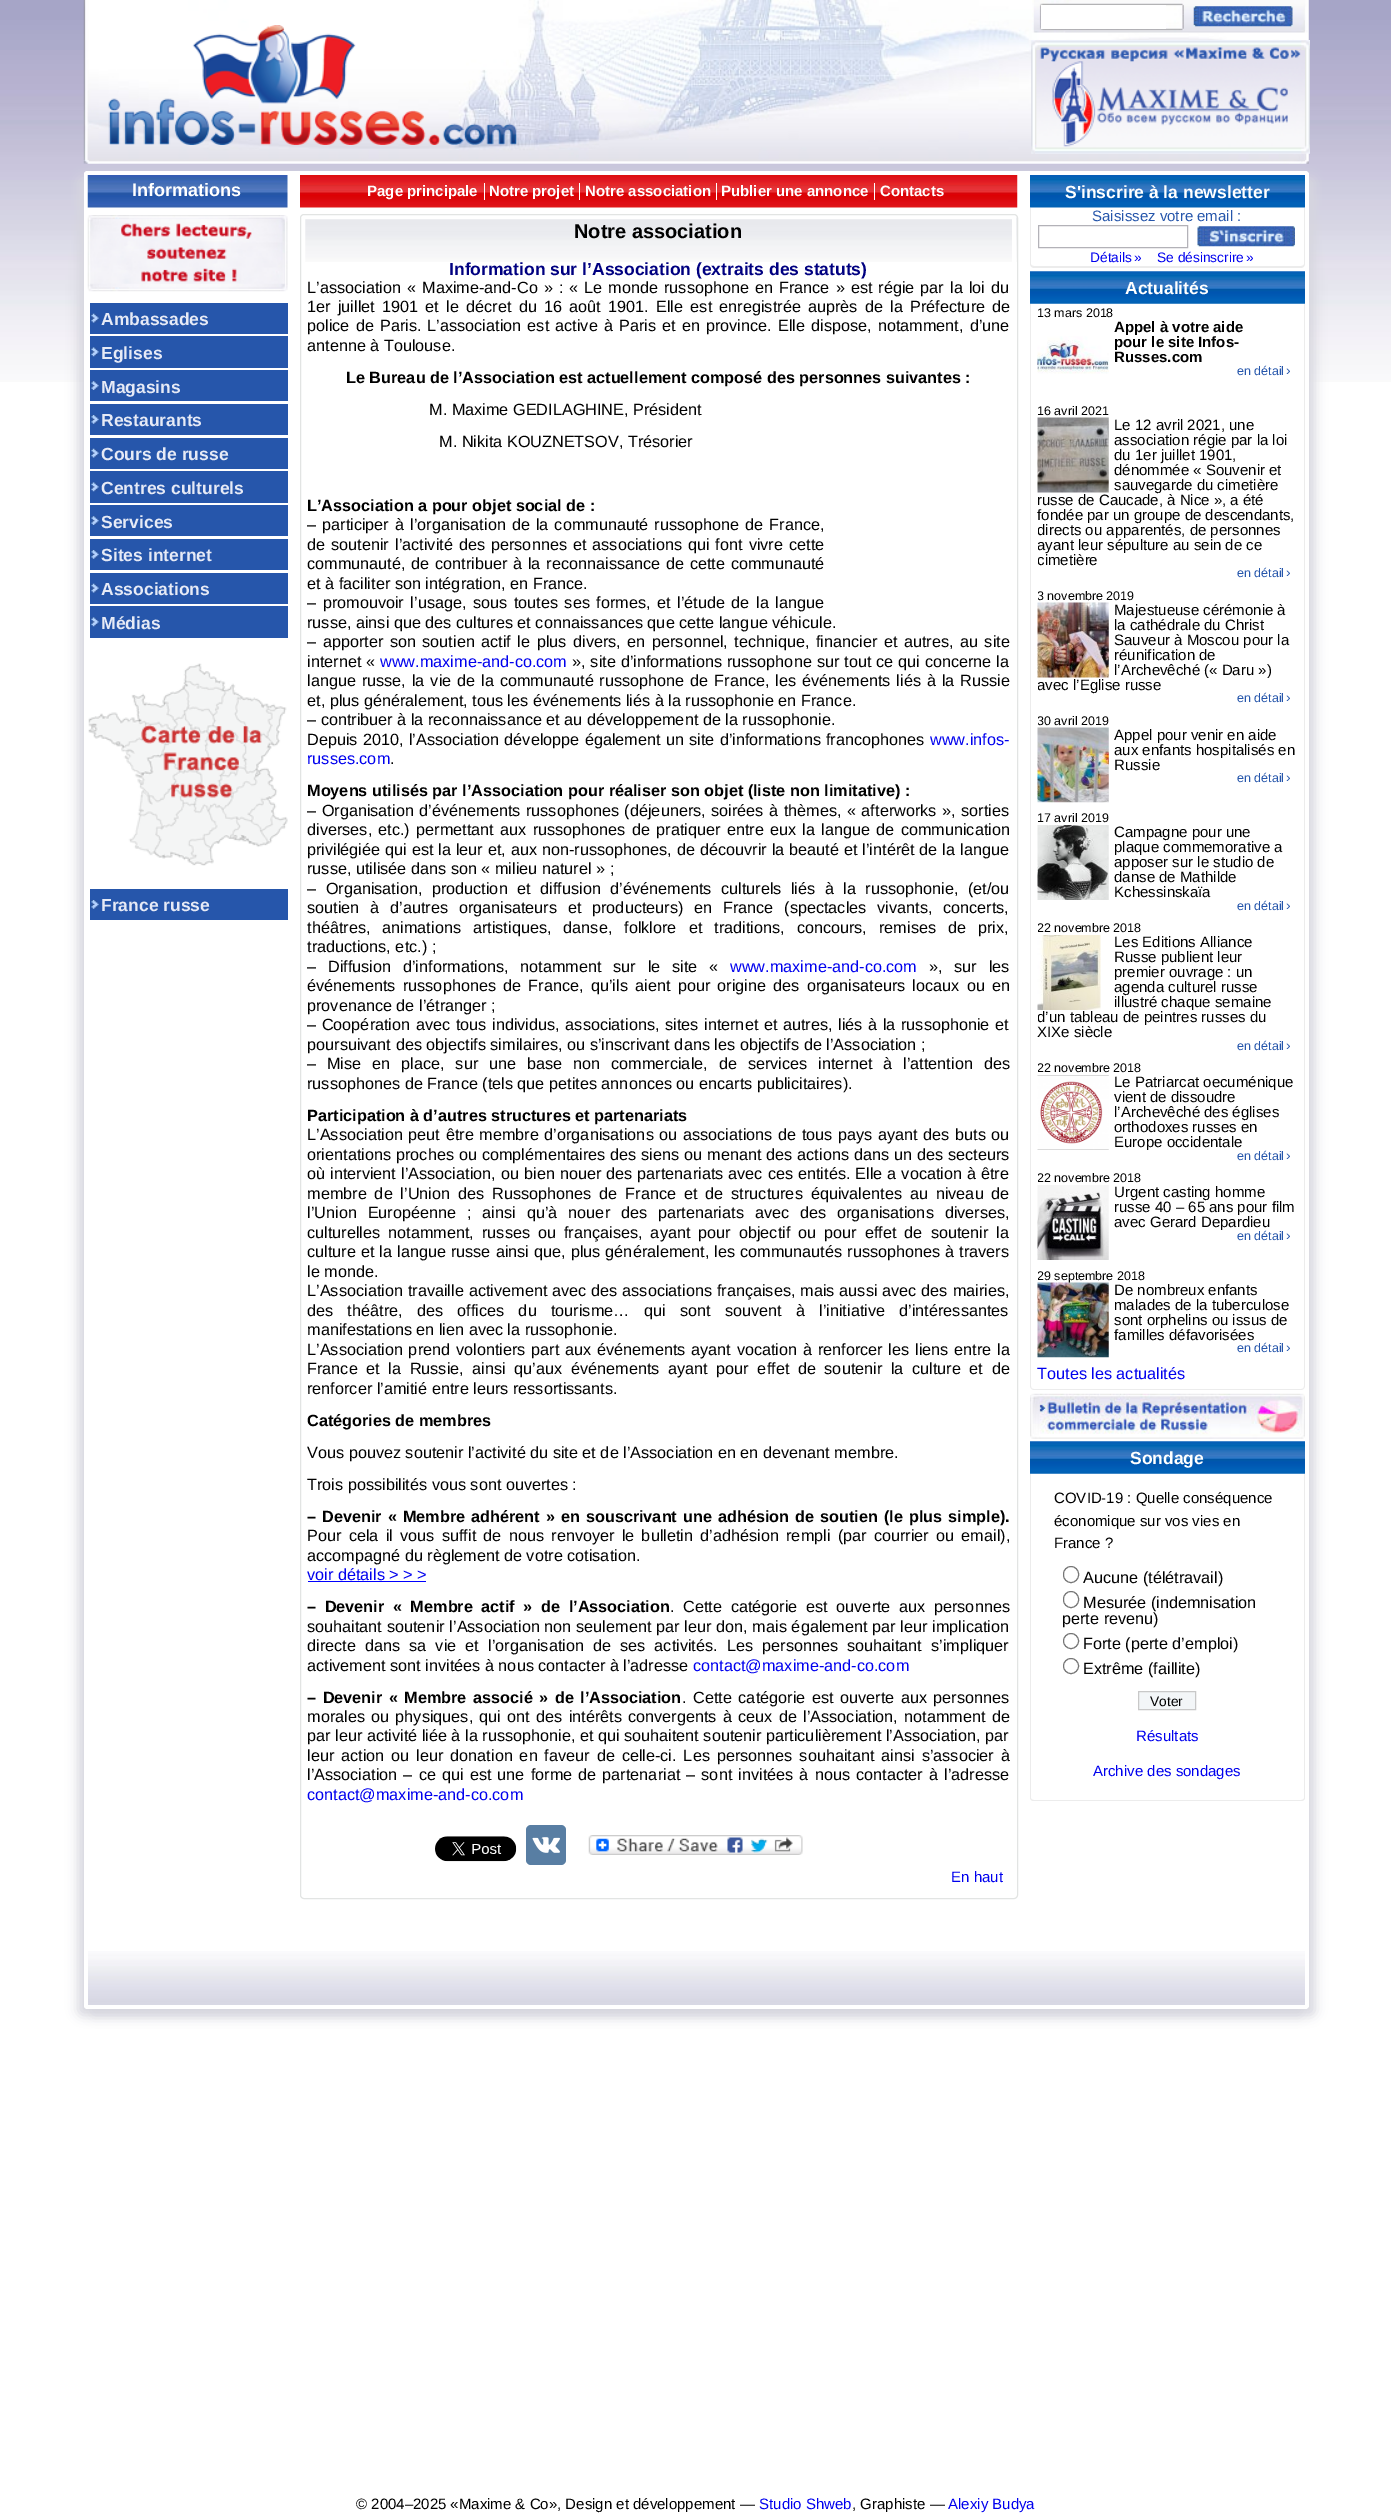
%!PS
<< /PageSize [1391 2520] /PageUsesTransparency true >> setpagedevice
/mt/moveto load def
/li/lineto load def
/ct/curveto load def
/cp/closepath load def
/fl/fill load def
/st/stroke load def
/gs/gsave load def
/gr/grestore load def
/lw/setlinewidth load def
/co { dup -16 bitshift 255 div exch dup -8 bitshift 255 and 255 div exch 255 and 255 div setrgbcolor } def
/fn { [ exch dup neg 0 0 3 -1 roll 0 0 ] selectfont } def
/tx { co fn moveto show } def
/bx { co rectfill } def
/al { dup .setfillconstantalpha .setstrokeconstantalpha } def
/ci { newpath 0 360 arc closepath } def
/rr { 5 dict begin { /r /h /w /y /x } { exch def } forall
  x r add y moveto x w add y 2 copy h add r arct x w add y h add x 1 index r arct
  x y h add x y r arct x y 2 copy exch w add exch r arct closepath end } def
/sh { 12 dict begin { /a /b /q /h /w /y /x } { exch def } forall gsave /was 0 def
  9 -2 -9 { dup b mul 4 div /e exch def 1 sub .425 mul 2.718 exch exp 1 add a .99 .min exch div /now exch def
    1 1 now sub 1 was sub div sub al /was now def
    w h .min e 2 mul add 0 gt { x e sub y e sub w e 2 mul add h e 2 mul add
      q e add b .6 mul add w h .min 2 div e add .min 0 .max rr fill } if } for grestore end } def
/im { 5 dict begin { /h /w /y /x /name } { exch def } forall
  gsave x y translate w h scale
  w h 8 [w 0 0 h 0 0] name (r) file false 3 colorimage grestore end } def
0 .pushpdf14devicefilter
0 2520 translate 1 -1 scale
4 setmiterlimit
0 0 1391 2520 16#FFFFFF bx
(media/1.raw) 0 0 1391 382 im
(media/2.raw) 83 0 1226 164 im
(media/3.raw) 108 25 409 120 im
(media/4.raw) 1032 0 276 33 im
1041 5 125 24 16#FFFFFF bx
(media/5.raw) 1193 6 100 21 im
(media/6.raw) 1031 40 279 114 im
16#D6D6DE co
90 178 1225 1837 4 6 1 sh
78 178 1225 1837 4 6 1 sh
16#FFFFFF co
84 171 1225 1838 4 rr fl
(media/7.raw) 88 1951 1217 54 im
88 171 mt 1305 171 li 1307 171 1309 173 1309 175 ct 1309 2005 li 1309 2007 1307 2009 1305 2009 ct 88 2009 li 85 2009 84 2007 84 2005 ct 84 175 li 84 173 85 171 88 171 ct cp 88 171 mt 1305 171 li 1305 2005 li 88 2005 li cp eofill
(media/8.raw) 87 175 201 33 im
(media/9.raw) 87 215 201 77 im
90 303 198 31 16#2656AB bx
(media/10.raw) 90 313 10 10 im
90 336 198 32 16#2656AB bx
(media/11.raw) 90 347 10 10 im
90 370 198 31 16#2656AB bx
(media/12.raw) 90 381 10 9 im
90 404 198 31 16#2656AB bx
(media/13.raw) 90 415 10 9 im
90 438 198 31 16#2656AB bx
(media/10.raw) 90 448 10 10 im
90 471 198 32 16#2656AB bx
(media/11.raw) 90 482 10 10 im
90 505 198 31 16#2656AB bx
(media/12.raw) 90 516 10 9 im
90 539 198 31 16#2656AB bx
(media/13.raw) 90 550 10 9 im
90 573 198 31 16#2656AB bx
(media/10.raw) 90 583 10 10 im
90 606 198 32 16#2656AB bx
(media/11.raw) 90 617 10 10 im
(media/14.raw) 88 663 200 203 im
90 889 198 31 16#2656AB bx
(media/13.raw) 90 900 10 9 im
(media/15.raw) 300 175 718 33 im
484 183 1 17 16#FFFFFF bx
579 183 1 17 16#FFFFFF bx
716 183 1 17 16#FFFFFF bx
874 183 1 17 16#FFFFFF bx
(media/16.raw) 300 217 717 45 im
4 lw
303 217 711 1679 .5 rr st
16#E2E4E3 co
1 lw
300.5 214.5 717 1684 3.5 rr st
308 1581 118 1 16#0000FF bx
(media/17.raw) 435 1836 82 26 im
16#587EA3 co
526 1825 40 40 5 rr fl
(media/18.raw) 532 1837 28 16 im
(media/19.raw) 588 1835 215 20 im
(media/20.raw) 1030 175 275 33 im
16#ECECEC co
1030 208 mt 1305 208 li 1305 264 li 1305 266 1303 268 1301 268 ct 1034 268 li 1032 268 1030 266 1030 264 ct cp 1031 208 mt 1304 208 li 1304 264 li 1304 265 1303 266 1301 266 ct 1034 266 li 1032 266 1031 265 1031 264 ct cp eofill
16#B3B2B8 co
1038.5 225.5 149 22 rectstroke
(media/21.raw) 1197 226 98 21 im
(media/22.raw) 1030 271 275 33 im
16#ECECEC co
1030 304 mt 1305 304 li 1305 1386 li 1305 1388 1303 1390 1301 1390 ct 1034 1390 li 1032 1390 1030 1388 1030 1386 ct cp 1031 304 mt 1304 304 li 1304 1386 li 1304 1388 1303 1389 1301 1389 ct 1034 1389 li 1032 1389 1031 1388 1031 1386 ct cp eofill
(media/23.raw) 1037 336 72 38 im
(media/24.raw) 1037 417 72 76 im
(media/25.raw) 1037 602 72 76 im
(media/26.raw) 1037 727 72 76 im
(media/27.raw) 1037 825 72 75 im
(media/28.raw) 1037 935 64 75 im
(media/29.raw) 1037 1075 72 75 im
(media/30.raw) 1037 1185 72 75 im
(media/31.raw) 1037 1282 72 76 im
(media/32.raw) 1030 1393 275 46 im
(media/33.raw) 1030 1441 275 33 im
1030 1474 mt 1305 1474 li 1305 1798 li 1305 1800 1303 1801 1301 1801 ct 1034 1801 li 1032 1801 1030 1800 1030 1798 ct cp 1031 1474 mt 1304 1474 li 1304 1798 li 1304 1799 1303 1800 1301 1800 ct 1034 1800 li 1032 1800 1031 1799 1031 1798 ct cp eofill
16#767676 co
1063.5 1566.5 15 16 7.5 rr st
1063.5 1591.5 15 16 7.5 rr st
1071 1641 7.5 ci st
1071 1666 7.5 ci st
16#F3F6F8 co
1138.5 1691.5 mt 1195.5 1691.5 li 1195.5 1709.5 li 1138.5 1709.5 li cp gs fl gr
16#C8C8C8 co
st
(Informations) 132 196 /LiberationSans-Bold 18 16#FFFFFF tx
(Ambassades) 101 325 /LiberationSans-Bold 17.5 16#E6EAF6 tx
(Eglises) 101 359 /LiberationSans-Bold 17.5 16#E6EAF6 tx
(Magasins) 101 393 /LiberationSans-Bold 17.5 16#E6EAF6 tx
(Restaurants) 101 426 /LiberationSans-Bold 17.5 16#E6EAF6 tx
(Cours de russe) 101 460 /LiberationSans-Bold 17.5 16#E6EAF6 tx
(Centres culturels) 101 494 /LiberationSans-Bold 17.5 16#E6EAF6 tx
(Services) 101 528 /LiberationSans-Bold 17.5 16#E6EAF6 tx
(Sites internet) 101 561 /LiberationSans-Bold 17.5 16#E6EAF6 tx
(Associations) 101 595 /LiberationSans-Bold 17.5 16#E6EAF6 tx
(Médias) 101 629 /LiberationSans-Bold 17.5 16#E6EAF6 tx
(France russe) 101 911 /LiberationSans-Bold 17.5 16#E6EAF6 tx
(Page principale) 367 196 /LiberationSans-Bold 15 16#FFFFFF tx
(Notre projet) 489 196 /LiberationSans-Bold 15 16#FFFFFF tx
(Notre association) 585 196 /LiberationSans-Bold 15 16#FFFFFF tx
(Publier une annonce) 721 196 /LiberationSans-Bold 15 16#FFFFFF tx
(Contacts) 880 196 /LiberationSans-Bold 15 16#FFFFFF tx
(Notre association) 574 238 /LiberationSans-Bold 20 16#000000 tx
(Information sur l’Association \(extraits des statuts\)) 449 275 /LiberationSans-Bold 17.5 16#000080 tx
/LiberationSans-Regular 16.25 fn
16#000000 co
307 293 mt 1.5 0 32 (L’association « Maxime-and-Co » : « Le monde russophone en France » est régie par la loi du) widthshow
307 312 mt 2.75 0 32 (1er juillet 1901 et le décret du 16 août 1901. Elle est enregistrée auprès de la Préfecture de) widthshow
307 331 mt 1.6 0 32 (police de Paris. L’association est active à Paris et en province. Elle dispose, notamment, d’une) widthshow
(antenne à Toulouse.) 307 351 /LiberationSans-Regular 16.25 16#000000 tx
(Le Bureau de l’Association est actuellement composé des personnes suivantes :) 346 383 /LiberationSans-Bold 16.25 16#000000 tx
(M. Maxime GEDILAGHINE, Président) 429 415 /LiberationSans-Regular 16.25 16#000000 tx
(M. Nikita KOUZNETSOV, Trésorier) 439 447 /LiberationSans-Regular 16.25 16#000000 tx
(L’Association a pour objet social de :) 307 511 /LiberationSans-Bold 16.25 16#000000 tx
/LiberationSans-Regular 16.25 fn
307 530 mt 1.5 0 32 (– participer à l’organisation de la communauté russophone de France,) widthshow
307 550 mt 1.5 0 32 (de soutenir l’activité des personnes et associations qui font vivre cette) widthshow
307 569 mt 1.25 0 32 (communauté, de contribuer à la reconnaissance de cette communauté) widthshow
(et à faciliter son intégration, en France.) 307 589 /LiberationSans-Regular 16.25 16#000000 tx
307 608 mt 2 0 32 (– promouvoir l’usage, sous toutes ses formes, et l’étude de la langue) widthshow
(russe, ainsi que des cultures et connaissances que cette langue véhicule.) 307 628 /LiberationSans-Regular 16.25 16#000000 tx
307 647 mt 2 0 32 (– apporter son soutien actif le plus divers, en personnel, technique, financier et autres, au site) widthshow
(internet «) 307 667 /LiberationSans-Regular 16.25 16#000000 tx
(www.maxime-and-co.com) 380 667 /LiberationSans-Regular 16.25 16#0000EE tx
16#000000 co
572 667 mt .4 0 32 (», site d’informations russophone sur tout ce qui concerne la) widthshow
307 686 mt 1.4 0 32 (langue russe, la vie de la communauté russophone de France, les événements liés à la Russie) widthshow
(et, plus généralement, tous les événements liés à la russophonie en France.) 307 706 /LiberationSans-Regular 16.25 16#000000 tx
(– contribuer à la reconnaissance et au développement de la russophonie.) 307 725 /LiberationSans-Regular 16.25 16#000000 tx
307 745 mt .75 0 32 (Depuis 2010, l’Association développe également un site d’informations francophones) widthshow
(www.infos-) 930 745 /LiberationSans-Regular 16.25 16#0000EE tx
(russes.com) 307 764 /LiberationSans-Regular 16.25 16#0000EE tx
(.) 390 764 /LiberationSans-Regular 16.25 16#000000 tx
(Moyens utilisés par l’Association pour réaliser son objet \(liste non limitative\) :) 307 796 /LiberationSans-Bold 16.25 16#000000 tx
/LiberationSans-Regular 16.25 fn
307 816 mt 1 0 32 (– Organisation d’événements russophones \(déjeuners, soirées à thèmes, « afterworks », sorties) widthshow
307 835 mt 1.75 0 32 (diverses, etc.\) permettant aux russophones de pratiquer entre eux la langue de communication) widthshow
307 855 mt .4 0 32 (privilégiée qui est la leur et, aux non-russophones, de découvrir la beauté et l’intérêt de la langue) widthshow
(russe, utilisée dans son « milieu naturel » ;) 307 874 /LiberationSans-Regular 16.25 16#000000 tx
307 894 mt 5 0 32 (– Organisation, production et diffusion d’événements culturels liés à la russophonie, \(et/ou) widthshow
307 913 mt 6.25 0 32 (soutien à d’autres organisateurs et producteurs\) en France \(spectacles vivants, concerts,) widthshow
307 933 mt 7.5 0 32 (théâtres, animations artistiques, danse, folklore et traditions, concours, remises de prix,) widthshow
(traductions, etc.\) ;) 307 952 /LiberationSans-Regular 16.25 16#000000 tx
307 972 mt 7.25 0 32 (– Diffusion d’informations, notamment sur le site «) widthshow
(www.maxime-and-co.com) 730 972 /LiberationSans-Regular 16.25 16#0000EE tx
16#000000 co
929 972 mt 7.25 0 32 (», sur les) widthshow
307 991 mt 2.75 0 32 (événements russophones de France, qu’ils aient pour origine des organisateurs locaux ou en) widthshow
(provenance de l’étranger ;) 307 1011 /LiberationSans-Regular 16.25 16#000000 tx
307 1030 mt 1.1 0 32 (– Coopération avec tous individus, associations, sites internet et autres, liés à la russophonie et) widthshow
(poursuivant des objectifs similaires, ou s’inscrivant dans les objectifs de l’Association ;) 307 1050 /LiberationSans-Regular 16.25 16#000000 tx
307 1069 mt 6.4 0 32 (– Mise en place, sur une base non commerciale, de services internet à l’attention des) widthshow
(russophones de France \(tels que petites annonces ou encarts publicitaires\).) 307 1089 /LiberationSans-Regular 16.25 16#000000 tx
(Participation à d’autres structures et partenariats) 307 1121 /LiberationSans-Bold 16.25 16#000000 tx
/LiberationSans-Regular 16.25 fn
307 1140 mt 1.1 0 32 (L’Association peut être membre d’organisations ou associations de tous pays ayant des buts ou) widthshow
307 1160 mt .4 0 32 (orientations proches ou complémentaires des siens ou menant des actions dans un des secteurs) widthshow
307 1179 mt .5 0 32 (où intervient l’Association, ou bien nouer des partenariats avec ces entités. Elle a vocation à être) widthshow
307 1199 mt 3.4 0 32 (membre de l’Union des Russophones de France et de structures équivalentes au niveau de) widthshow
307 1218 mt 6.4 0 32 (l’Union Européenne ; ainsi qu’à nouer des partenariats avec des organisations diverses,) widthshow
307 1238 mt 3.5 0 32 (culturelles notamment, russes ou françaises, ayant pour objectif ou pour effet de soutenir la) widthshow
307 1257 mt .5 0 32 (culture et la langue russe ainsi que, plus généralement, les communautés russophones à travers) widthshow
(le monde.) 307 1277 /LiberationSans-Regular 16.25 16#000000 tx
307 1296 mt .4 0 32 (L’Association travaille activement avec des associations françaises, mais aussi avec des mairies,) widthshow
307 1316 mt 9.75 0 32 (des théâtre, des offices du tourisme… qui sont souvent à l’initiative d’intéressantes) widthshow
(manifestations en lien avec la russophonie.) 307 1335 /LiberationSans-Regular 16.25 16#000000 tx
307 1355 mt 1.25 0 32 (L’Association prend volontiers part aux événements ayant vocation à renforcer les liens entre la) widthshow
307 1374 mt 4.1 0 32 (France et la Russie, ainsi qu’aux événements ayant pour effet de soutenir la culture et de) widthshow
(renforcer l’amitié entre leurs ressortissants.) 307 1394 /LiberationSans-Regular 16.25 16#000000 tx
(Catégories de membres) 307 1426 /LiberationSans-Bold 16.25 16#000000 tx
(Vous pouvez soutenir l’activité du site et de l’Association en en devenant membre.) 307 1458 /LiberationSans-Regular 16.25 16#000000 tx
(Trois possibilités vous sont ouvertes :) 307 1490 /LiberationSans-Regular 16.25 16#000000 tx
/LiberationSans-Bold 16.25 fn
307 1522 mt 1.5 0 32 (– Devenir « Membre adhérent » en souscrivant une adhésion de soutien \(le plus simple\).) widthshow
/LiberationSans-Regular 16.25 fn
307 1541 mt 2.75 0 32 (Pour cela il vous suffit de nous renvoyer le bulletin d’adhésion rempli \(par courrier ou email\),) widthshow
(accompagné du règlement de votre cotisation.) 307 1561 /LiberationSans-Regular 16.25 16#000000 tx
(voir détails > > >) 307 1580 /LiberationSans-Regular 16.25 16#0000EE tx
/LiberationSans-Bold 16.25 fn
16#000000 co
307 1612 mt 4.1 0 32 (– Devenir « Membre actif » de l’Association) widthshow
/LiberationSans-Regular 16.25 fn
670 1612 mt 4.1 0 32 (. Cette catégorie est ouverte aux personnes) widthshow
307 1632 mt .25 0 32 (souhaitant soutenir l’Association non seulement par leur don, mais également par leur implication) widthshow
307 1651 mt 4.6 0 32 (directe dans sa vie et l’organisation de ses activités. Les personnes souhaitant s’impliquer) widthshow
(activement sont invitées à nous contacter à l’adresse) 307 1671 /LiberationSans-Regular 16.25 16#000000 tx
(contact@maxime-and-co.com) 693 1671 /LiberationSans-Regular 16.25 16#0000EE tx
/LiberationSans-Bold 16.25 fn
16#000000 co
307 1703 mt 2 0 32 (– Devenir « Membre associé » de l’Association) widthshow
/LiberationSans-Regular 16.25 fn
682 1703 mt 2 0 32 (. Cette catégorie est ouverte aux personnes) widthshow
307 1722 mt 1.75 0 32 (morales ou physiques, qui ont des intérêts convergents à ceux de l’Association, notamment de) widthshow
(par leur activité liée à la russophonie, et qui souhaitent soutenir particulièrement l’Association, par) 307 1741 /LiberationSans-Regular 16.25 16#000000 tx
307 1761 mt 2.4 0 32 (leur action ou leur donation en faveur de celle-ci. Les personnes souhaitant ainsi s’associer à) widthshow
307 1780 mt 1.6 0 32 (l’Association – ce qui est une forme de partenariat – sont invitées à nous contacter à l’adresse) widthshow
(contact@maxime-and-co.com) 307 1800 /LiberationSans-Regular 16.25 16#0000EE tx
(En haut) 951 1882 /LiberationSans-Regular 15 16#0000EE tx
(S'inscrire à la newsletter) 1065 198 /LiberationSans-Bold 17.5 16#FFFFFF tx
(Saisissez votre email :) 1092 221 /LiberationSans-Regular 15 16#2656AB tx
(Détails) 1090 262 /LiberationSans-Regular 13.75 16#0000EE tx
(») 1134 262 /LiberationSans-Regular 13.75 16#0000EE tx
(Se désinscrire) 1157 262 /LiberationSans-Regular 13.75 16#0000EE tx
(») 1246 262 /LiberationSans-Regular 13.75 16#0000EE tx
(Actualités) 1125 294 /LiberationSans-Bold 17.5 16#FFFFFF tx
(13 mars 2018) 1037 317 /LiberationSans-Regular 12.5 16#000000 tx
(Appel à votre aide) 1114 332 /LiberationSans-Bold 15 16#000000 tx
(pour le site Infos-) 1114 347 /LiberationSans-Bold 15 16#000000 tx
(Russes.com) 1114 362 /LiberationSans-Bold 15 16#000000 tx
(en détail) 1237 375 /LiberationSans-Regular 12.5 16#2656AB tx
(›) 1286 375 /LiberationSans-Regular 13.75 16#2656AB tx
(16 avril 2021) 1037 415 /LiberationSans-Regular 12.5 16#000000 tx
(Le 12 avril 2021, une) 1114 430 /LiberationSans-Regular 15 16#000000 tx
(association régie par la loi) 1114 445 /LiberationSans-Regular 15 16#000000 tx
(du 1er juillet 1901,) 1114 460 /LiberationSans-Regular 15 16#000000 tx
(dénommée « Souvenir et) 1114 475 /LiberationSans-Regular 15 16#000000 tx
(sauvegarde du cimetière) 1114 490 /LiberationSans-Regular 15 16#000000 tx
gs
1038 401 260 179 rectclip
(russe de Caucade, à Nice », a été) 1037 505 /LiberationSans-Regular 15 16#000000 tx
gr
(fondée par un groupe de descendants,) 1037 520 /LiberationSans-Regular 15 16#000000 tx
gs
1038 401 260 179 rectclip
(directs ou apparentés, de personnes) 1037 535 /LiberationSans-Regular 15 16#000000 tx
(ayant leur sépulture au sein de ce) 1037 550 /LiberationSans-Regular 15 16#000000 tx
(cimetière) 1037 565 /LiberationSans-Regular 15 16#000000 tx
gr
(en détail) 1237 577 /LiberationSans-Regular 12.5 16#2656AB tx
(›) 1286 577 /LiberationSans-Regular 13.75 16#2656AB tx
gs
1038 586 260 119 rectclip
(3 novembre 2019) 1037 600 /LiberationSans-Regular 12.5 16#000000 tx
gr
(Majestueuse cérémonie à) 1114 615 /LiberationSans-Regular 15 16#000000 tx
(la cathédrale du Christ) 1114 630 /LiberationSans-Regular 15 16#000000 tx
(Sauveur à Moscou pour la) 1114 645 /LiberationSans-Regular 15 16#000000 tx
(réunification de) 1114 660 /LiberationSans-Regular 15 16#000000 tx
(l’Archevêché \(« Daru »\)) 1114 675 /LiberationSans-Regular 15 16#000000 tx
gs
1038 586 260 119 rectclip
(avec l’Eglise russe) 1037 690 /LiberationSans-Regular 15 16#000000 tx
gr
(en détail) 1237 702 /LiberationSans-Regular 12.5 16#2656AB tx
(›) 1286 702 /LiberationSans-Regular 13.75 16#2656AB tx
gs
1038 711 260 92 rectclip
(30 avril 2019) 1037 725 /LiberationSans-Regular 12.5 16#000000 tx
gr
(Appel pour venir en aide) 1114 740 /LiberationSans-Regular 15 16#000000 tx
(aux enfants hospitalisés en) 1114 755 /LiberationSans-Regular 15 16#000000 tx
(Russie) 1114 770 /LiberationSans-Regular 15 16#000000 tx
(en détail) 1237 782 /LiberationSans-Regular 12.5 16#2656AB tx
(›) 1286 782 /LiberationSans-Regular 13.75 16#2656AB tx
(17 avril 2019) 1037 822 /LiberationSans-Regular 12.5 16#000000 tx
(Campagne pour une) 1114 837 /LiberationSans-Regular 15 16#000000 tx
(plaque commemorative a) 1114 852 /LiberationSans-Regular 15 16#000000 tx
(apposer sur le studio de) 1114 867 /LiberationSans-Regular 15 16#000000 tx
(danse de Mathilde) 1114 882 /LiberationSans-Regular 15 16#000000 tx
(Kchessinskaïa) 1114 897 /LiberationSans-Regular 15 16#000000 tx
(en détail) 1237 910 /LiberationSans-Regular 12.5 16#2656AB tx
(›) 1286 910 /LiberationSans-Regular 13.75 16#2656AB tx
gs
1038 919 260 134 rectclip
(22 novembre 2018) 1037 932 /LiberationSans-Regular 12.5 16#000000 tx
gr
(Les Editions Alliance) 1114 947 /LiberationSans-Regular 15 16#000000 tx
(Russe publient leur) 1114 962 /LiberationSans-Regular 15 16#000000 tx
(premier ouvrage : un) 1114 977 /LiberationSans-Regular 15 16#000000 tx
(agenda culturel russe) 1114 992 /LiberationSans-Regular 15 16#000000 tx
(illustré chaque semaine) 1114 1007 /LiberationSans-Regular 15 16#000000 tx
gs
1038 919 260 134 rectclip
(d’un tableau de peintres russes du) 1037 1022 /LiberationSans-Regular 15 16#000000 tx
gr
(XIXe siècle) 1037 1037 /LiberationSans-Regular 15 16#000000 tx
(en détail) 1237 1050 /LiberationSans-Regular 12.5 16#2656AB tx
(›) 1286 1050 /LiberationSans-Regular 13.75 16#2656AB tx
gs
1038 1059 260 104 rectclip
(22 novembre 2018) 1037 1072 /LiberationSans-Regular 12.5 16#000000 tx
gr
(Le Patriarcat oecuménique) 1114 1087 /LiberationSans-Regular 15 16#000000 tx
(vient de dissoudre) 1114 1102 /LiberationSans-Regular 15 16#000000 tx
(l’Archevêché des églises) 1114 1117 /LiberationSans-Regular 15 16#000000 tx
(orthodoxes russes en) 1114 1132 /LiberationSans-Regular 15 16#000000 tx
(Europe occidentale) 1114 1147 /LiberationSans-Regular 15 16#000000 tx
(en détail) 1237 1160 /LiberationSans-Regular 12.5 16#2656AB tx
(›) 1286 1160 /LiberationSans-Regular 13.75 16#2656AB tx
gs
1038 1169 260 91 rectclip
(22 novembre 2018) 1037 1182 /LiberationSans-Regular 12.5 16#000000 tx
gr
(Urgent casting homme) 1114 1197 /LiberationSans-Regular 15 16#000000 tx
(russe 40 – 65 ans pour film) 1114 1212 /LiberationSans-Regular 15 16#000000 tx
(avec Gerard Depardieu) 1114 1227 /LiberationSans-Regular 15 16#000000 tx
(en détail) 1237 1240 /LiberationSans-Regular 12.5 16#2656AB tx
(›) 1286 1240 /LiberationSans-Regular 13.75 16#2656AB tx
gs
1038 1266 260 92 rectclip
(29 septembre 2018) 1037 1280 /LiberationSans-Regular 12.5 16#000000 tx
gr
(De nombreux enfants) 1114 1295 /LiberationSans-Regular 15 16#000000 tx
(malades de la tuberculose) 1114 1310 /LiberationSans-Regular 15 16#000000 tx
(sont orphelins ou issus de) 1114 1325 /LiberationSans-Regular 15 16#000000 tx
(familles défavorisées) 1114 1340 /LiberationSans-Regular 15 16#000000 tx
(en détail) 1237 1352 /LiberationSans-Regular 12.5 16#2656AB tx
(›) 1286 1352 /LiberationSans-Regular 13.75 16#2656AB tx
(Toutes les actualités) 1037 1379 /LiberationSans-Regular 16.25 16#0000EE tx
(Sondage) 1130 1464 /LiberationSans-Bold 17.5 16#FFFFFF tx
(COVID-19 : Quelle conséquence) 1054 1503 /LiberationSans-Regular 15 16#000000 tx
(économique sur vos vies en) 1054 1526 /LiberationSans-Regular 15 16#000000 tx
(France ?) 1054 1548 /LiberationSans-Regular 15 16#000000 tx
(Aucune \(télétravail\)) 1083 1583 /LiberationSans-Regular 16.25 16#000000 tx
(Mesurée \(indemnisation) 1083 1608 /LiberationSans-Regular 16.25 16#000000 tx
(perte revenu\)) 1062 1624 /LiberationSans-Regular 16.25 16#000000 tx
(Forte \(perte d’emploi\)) 1083 1649 /LiberationSans-Regular 16.25 16#000000 tx
(Extrême \(faillite\)) 1083 1674 /LiberationSans-Regular 16.25 16#000000 tx
(Voter) 1150 1706 /LiberationSans-Regular 13.75 16#000000 tx
(Résultats) 1136 1741 /LiberationSans-Regular 15 16#0000EE tx
(Archive des sondages) 1093 1776 /LiberationSans-Regular 15 16#0000EE tx
(© 2004–2025 «Maxime & Co», Design et développement —) 356 2509 /LiberationSans-Regular 15 16#000000 tx
(Studio Shweb) 759 2509 /LiberationSans-Regular 15 16#0000EE tx
(, Graphiste —) 852 2509 /LiberationSans-Regular 15 16#000000 tx
(Alexiy Budya) 948 2509 /LiberationSans-Regular 15 16#0000EE tx
.poppdf14devicefilter showpage
